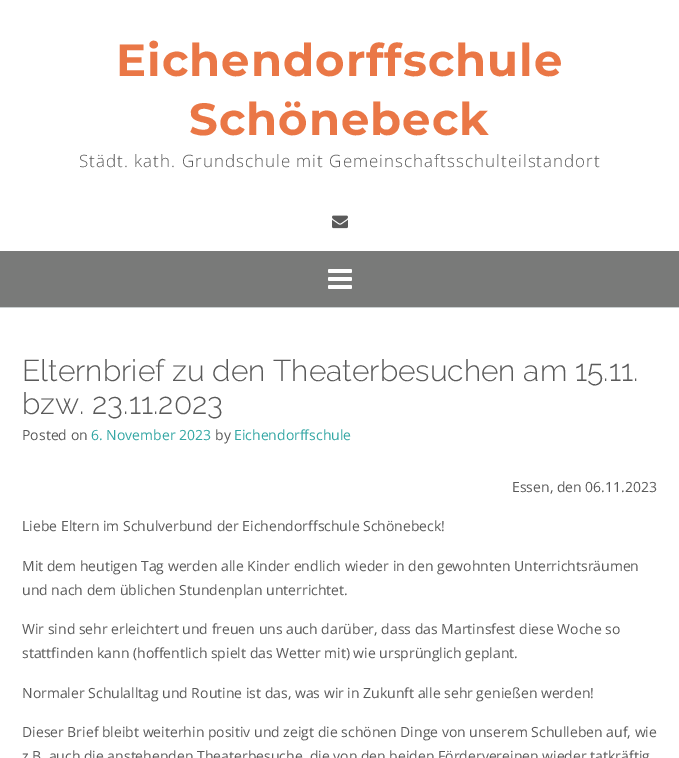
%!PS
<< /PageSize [679 758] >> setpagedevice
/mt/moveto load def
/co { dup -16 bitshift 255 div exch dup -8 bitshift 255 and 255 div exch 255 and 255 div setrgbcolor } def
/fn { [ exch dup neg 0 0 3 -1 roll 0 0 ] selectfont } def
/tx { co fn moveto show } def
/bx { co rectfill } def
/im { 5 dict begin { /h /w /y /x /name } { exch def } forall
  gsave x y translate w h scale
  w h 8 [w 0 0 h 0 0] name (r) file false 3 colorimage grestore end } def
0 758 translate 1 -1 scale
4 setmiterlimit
0 0 679 758 16#FFFFFF bx
(media/1.raw) 332 215 16 14 im
0 251 679 56 16#797A79 bx
0 307 679 1 16#CACFD0 bx
(media/2.raw) 328 269 24 20 im
/Montserrat-Bold 45 fn
16#EA7746 co
116 76 mt 1 0 (Eichendorffschule) ashow
189 135 mt 1 0 (Schönebeck) ashow
/OpenSans-Light 17 fn
16#5A5A5A co
79 167 mt 1 0 (Städt. kath. Grundschule mit Gemeinschaftsschulteilstandort) ashow
(Elternbrief zu den Theaterbesuchen am 15.11.) 22 381 /Raleway-Light 30 16#5A5A5A tx
(bzw. 23.11.2023) 22 414 /Raleway-Light 30 16#5A5A5A tx
(Posted on) 22 440 /OpenSans-Regular 14 16#5A5A5A tx
(6. November 2023) 91 440 /OpenSans-Regular 14 16#33A7A4 tx
(by) 215 440 /OpenSans-Regular 14 16#5A5A5A tx
(Eichendorffschule) 234 440 /OpenSans-Regular 14 16#33A7A4 tx
(Essen, den 06.11.2023) 512 492 /OpenSans-Regular 14 16#5A5A5A tx
(Liebe Eltern im Schulverbund der Eichendorffschule Schönebeck!) 22 531 /OpenSans-Regular 14 16#5A5A5A tx
(Mit dem heutigen Tag werden alle Kinder endlich wieder in den gewohnten Unterrichtsräumen) 22 571 /OpenSans-Regular 14 16#5A5A5A tx
(und nach dem üblichen Stundenplan unterrichtet.) 22 595 /OpenSans-Regular 14 16#5A5A5A tx
(Wir sind sehr erleichtert und freuen uns auch darüber, dass das Martinsfest diese Woche so) 22 634 /OpenSans-Regular 14 16#5A5A5A tx
(stattfinden kann \(hoffentlich spielt das Wetter mit\) wie ursprünglich geplant.) 22 658 /OpenSans-Regular 14 16#5A5A5A tx
(Normaler Schulalltag und Routine ist das, was wir in Zukunft alle sehr genießen werden!) 22 698 /OpenSans-Regular 14 16#5A5A5A tx
(Dieser Brief bleibt weiterhin positiv und zeigt die schönen Dinge von unserem Schulleben auf, wie) 22 737 /OpenSans-Regular 14 16#5A5A5A tx
(z.B. auch die anstehenden Theaterbesuche, die von den beiden Fördervereinen wieder tatkräftig) 22 761 /OpenSans-Regular 14 16#5A5A5A tx
showpage
